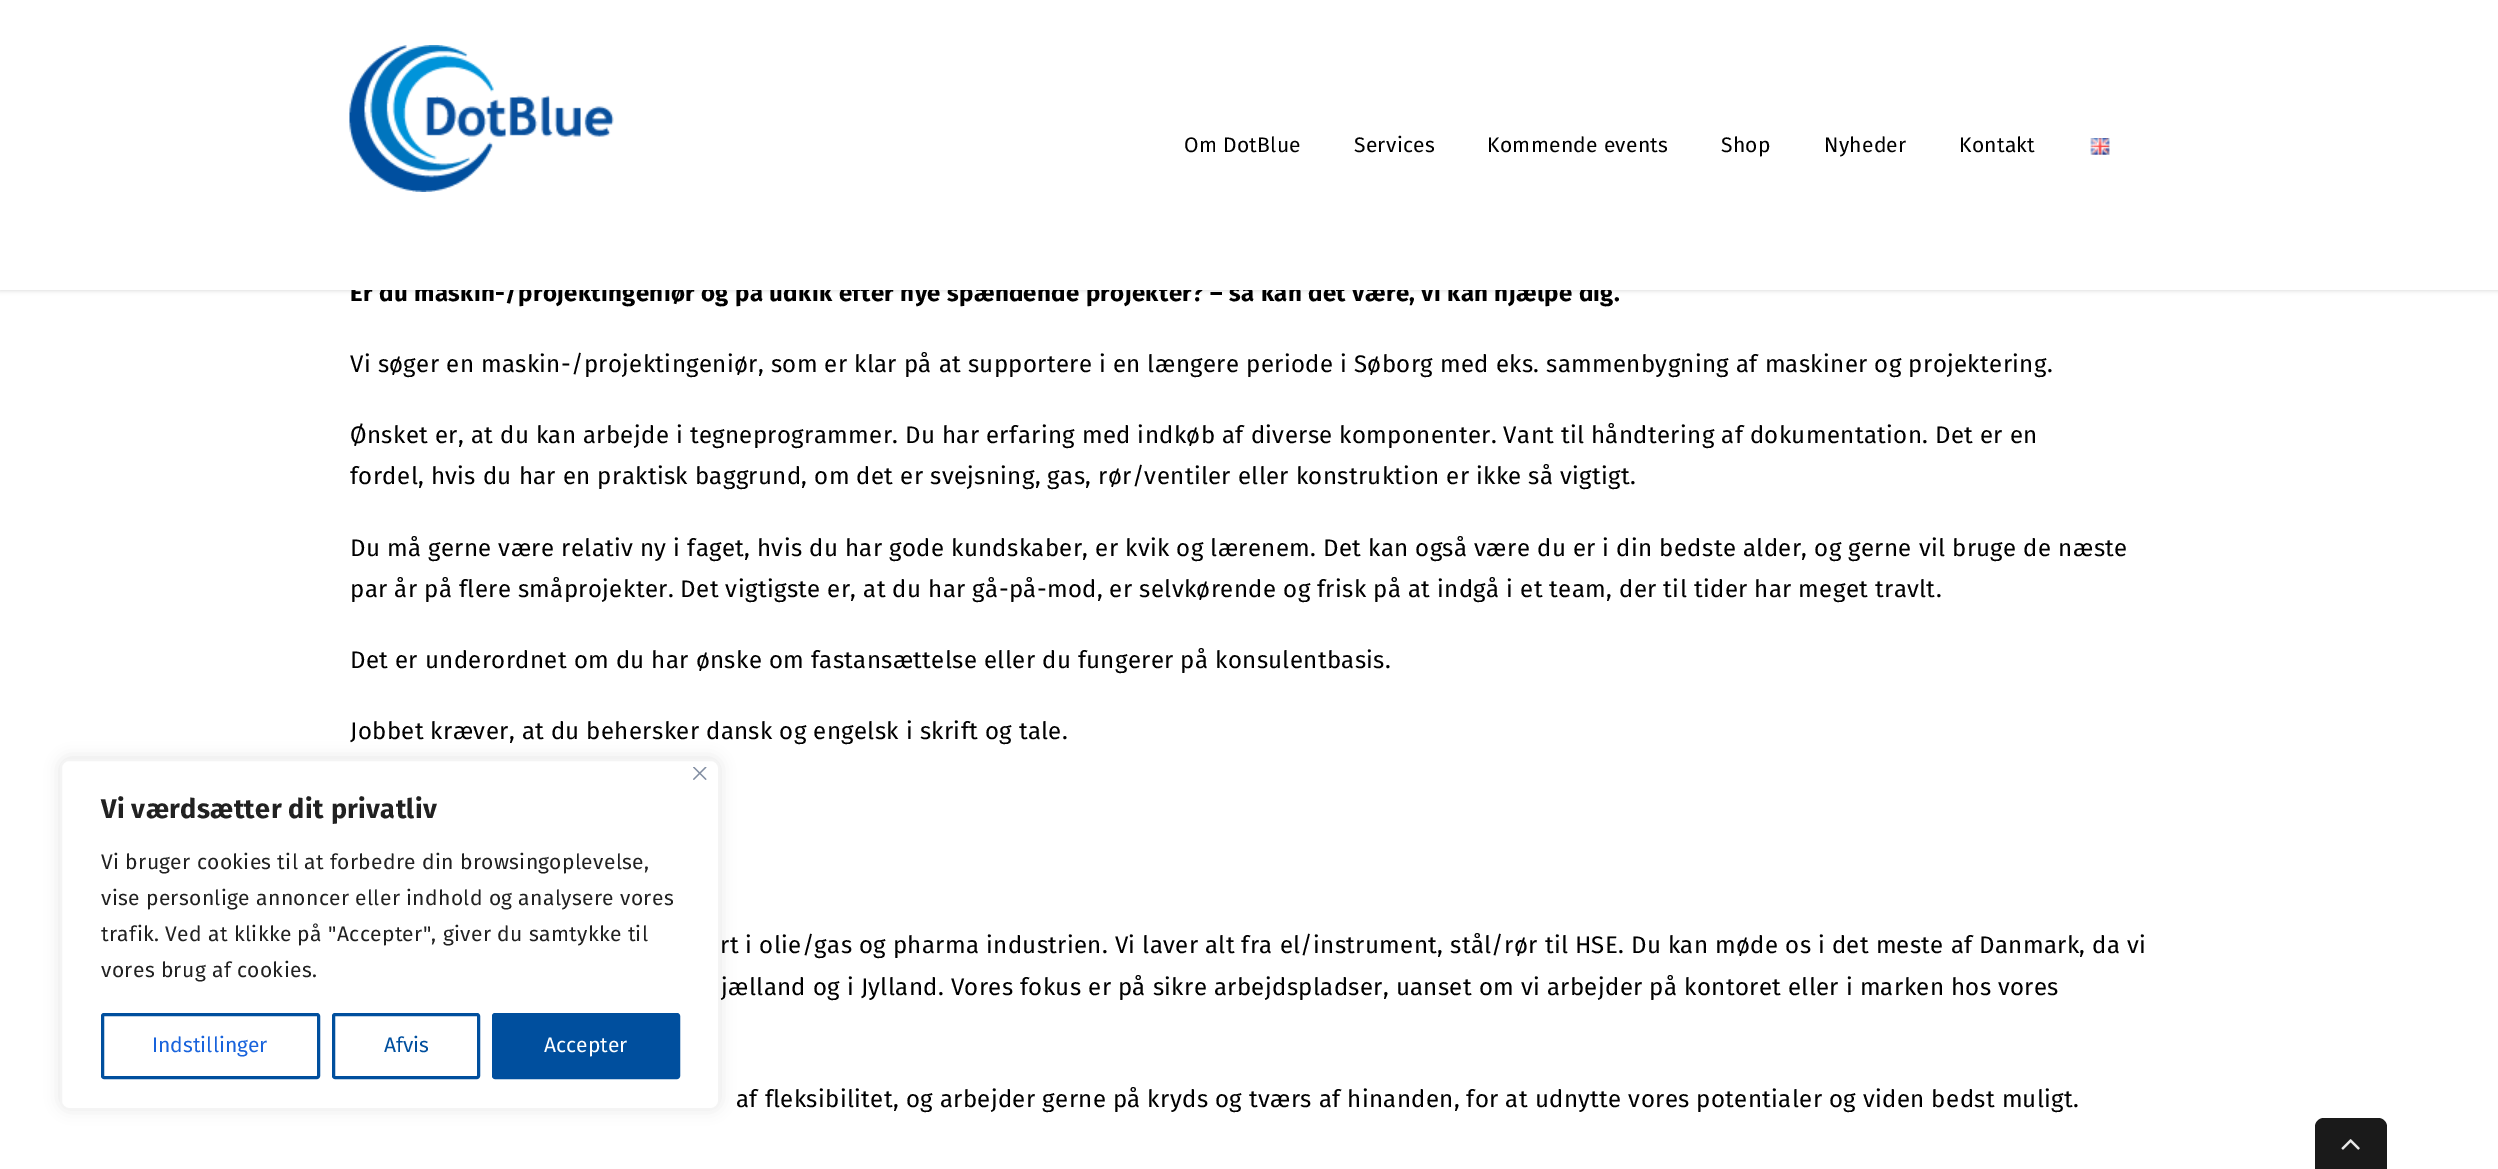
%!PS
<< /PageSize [2498 1169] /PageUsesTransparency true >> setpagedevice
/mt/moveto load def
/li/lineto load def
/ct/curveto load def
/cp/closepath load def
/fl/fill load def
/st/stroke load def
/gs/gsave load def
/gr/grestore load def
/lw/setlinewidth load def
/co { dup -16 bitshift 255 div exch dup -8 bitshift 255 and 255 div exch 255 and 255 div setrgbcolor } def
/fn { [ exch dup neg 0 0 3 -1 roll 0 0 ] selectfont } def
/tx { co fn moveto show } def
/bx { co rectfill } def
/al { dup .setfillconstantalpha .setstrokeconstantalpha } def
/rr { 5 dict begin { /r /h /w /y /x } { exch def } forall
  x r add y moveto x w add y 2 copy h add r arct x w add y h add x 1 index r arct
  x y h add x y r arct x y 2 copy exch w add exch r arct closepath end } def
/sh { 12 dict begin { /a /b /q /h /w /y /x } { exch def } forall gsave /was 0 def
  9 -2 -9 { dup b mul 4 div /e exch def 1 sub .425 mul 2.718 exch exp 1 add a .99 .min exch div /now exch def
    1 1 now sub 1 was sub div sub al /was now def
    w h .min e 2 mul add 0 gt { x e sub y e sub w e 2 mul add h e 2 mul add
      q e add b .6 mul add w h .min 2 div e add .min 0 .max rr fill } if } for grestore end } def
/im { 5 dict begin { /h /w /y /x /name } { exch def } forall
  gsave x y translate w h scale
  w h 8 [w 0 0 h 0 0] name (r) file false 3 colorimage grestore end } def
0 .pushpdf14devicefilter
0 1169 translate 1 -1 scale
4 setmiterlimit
0 0 2498 1169 16#FFFFFF bx
16#000000 co
0 2 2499 289 0 2 .12 sh
16#ACABAB co
60 758 660 351 9 7.5 .3 sh
16#FFFFFF co
61 760 658 349 8 rr gs fl gr
16#F4F4F4 co
2 lw
st
(media/3.raw) 693 767 14 13 im
16#004F9E co
3 lw
102.5 1014.5 216 63 1.5 rr st
333.5 1014.5 145 63 1.5 rr st
493.5 1014.5 185 63 1.5 rr gs fl gr
st
16#1A1A1A co
2324 1118 mt 2378 1118 li 2383 1118 2387 1122 2387 1127 ct 2387 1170 li 2315 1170 li 2315 1127 li 2315 1122 2319 1118 2324 1118 ct cp fl
(media/4.raw) 2341 1139 19 11 im
/FiraSans-Bold 24 fn
16#000000 co
350 301 mt .36 0 (Er du maskin-/projektingeniør og på udkik efter nye spændende projekter? – så kan det være, vi kan hjælpe dig.) ashow
0 0 2498 290 16#FFFFFF bx
(media/2.raw) 2090 138 20 17 im
/FiraSans-Regular 21 fn
16#000000 co
1959 152 mt .3 0 (Kontakt) ashow
1824 152 mt .3 0 (Nyheder) ashow
1721 152 mt .3 0 (Shop) ashow
1487 152 mt .3 0 (Kommende events) ashow
1354 152 mt .3 0 (Services) ashow
1184 152 mt .3 0 (Om DotBlue) ashow
(media/1.raw) 349 45 265 147 im
/FiraSans-Regular 24 fn
350 372 mt .36 0 (Vi søger en maskin-/projektingeniør, som er klar på at supportere i en længere periode i Søborg med eks. sammenbygning af maskiner og projektering.) ashow
350 443 mt .36 0 (Ønsket er, at du kan arbejde i tegneprogrammer. Du har erfaring med indkøb af diverse komponenter. Vant til håndtering af dokumentation. Det er en) ashow
350 484 mt .36 0 (fordel, hvis du har en praktisk baggrund, om det er svejsning, gas, rør/ventiler eller konstruktion er ikke så vigtigt.) ashow
350 556 mt .36 0 (Du må gerne være relativ ny i faget, hvis du har gode kundskaber, er kvik og lærenem. Det kan også være du er i din bedste alder, og gerne vil bruge de næste) ashow
350 597 mt .36 0 (par år på flere småprojekter. Det vigtigste er, at du har gå-på-mod, er selvkørende og frisk på at indgå i et team, der til tider har meget travlt.) ashow
350 668 mt .36 0 (Det er underordnet om du har ønske om fastansættelse eller du fungerer på konsulentbasis.) ashow
350 739 mt .36 0 (Jobbet kræver, at du behersker dansk og engelsk i skrift og tale.) ashow
720 953 mt .36 0 (rt i olie/gas og pharma industrien. Vi laver alt fra el/instrument, stål/rør til HSE. Du kan møde os i det meste af Danmark, da vi) ashow
721 995 mt .36 0 (jælland og i Jylland. Vores fokus er på sikre arbejdspladser, uanset om vi arbejder på kontoret eller i marken hos vores) ashow
736 1107 mt .36 0 (af fleksibilitet, og arbejder gerne på kryds og tværs af hinanden, for at udnytte vores potentialer og viden bedst muligt.) ashow
/FiraSans-Bold 27 fn
16#212121 co
101 818 mt .36 0 (Vi værdsætter dit privatliv) ashow
/FiraSans-Regular 21 fn
101 869 mt .36 0 (Vi bruger cookies til at forbedre din browsingoplevelse,) ashow
101 905 mt .36 0 (vise personlige annoncer eller indhold og analysere vores) ashow
101 941 mt .36 0 (trafik. Ved at klikke på "Accepter", giver du samtykke til) ashow
101 977 mt .36 0 (vores brug af cookies.) ashow
(Indstillinger) 152 1052 /FiraSans-Regular 21 16#1863DC tx
(Afvis) 384 1052 /FiraSans-Regular 21 16#004F9E tx
(Accepter) 544 1052 /FiraSans-Regular 21 16#FFFFFF tx
.poppdf14devicefilter showpage
